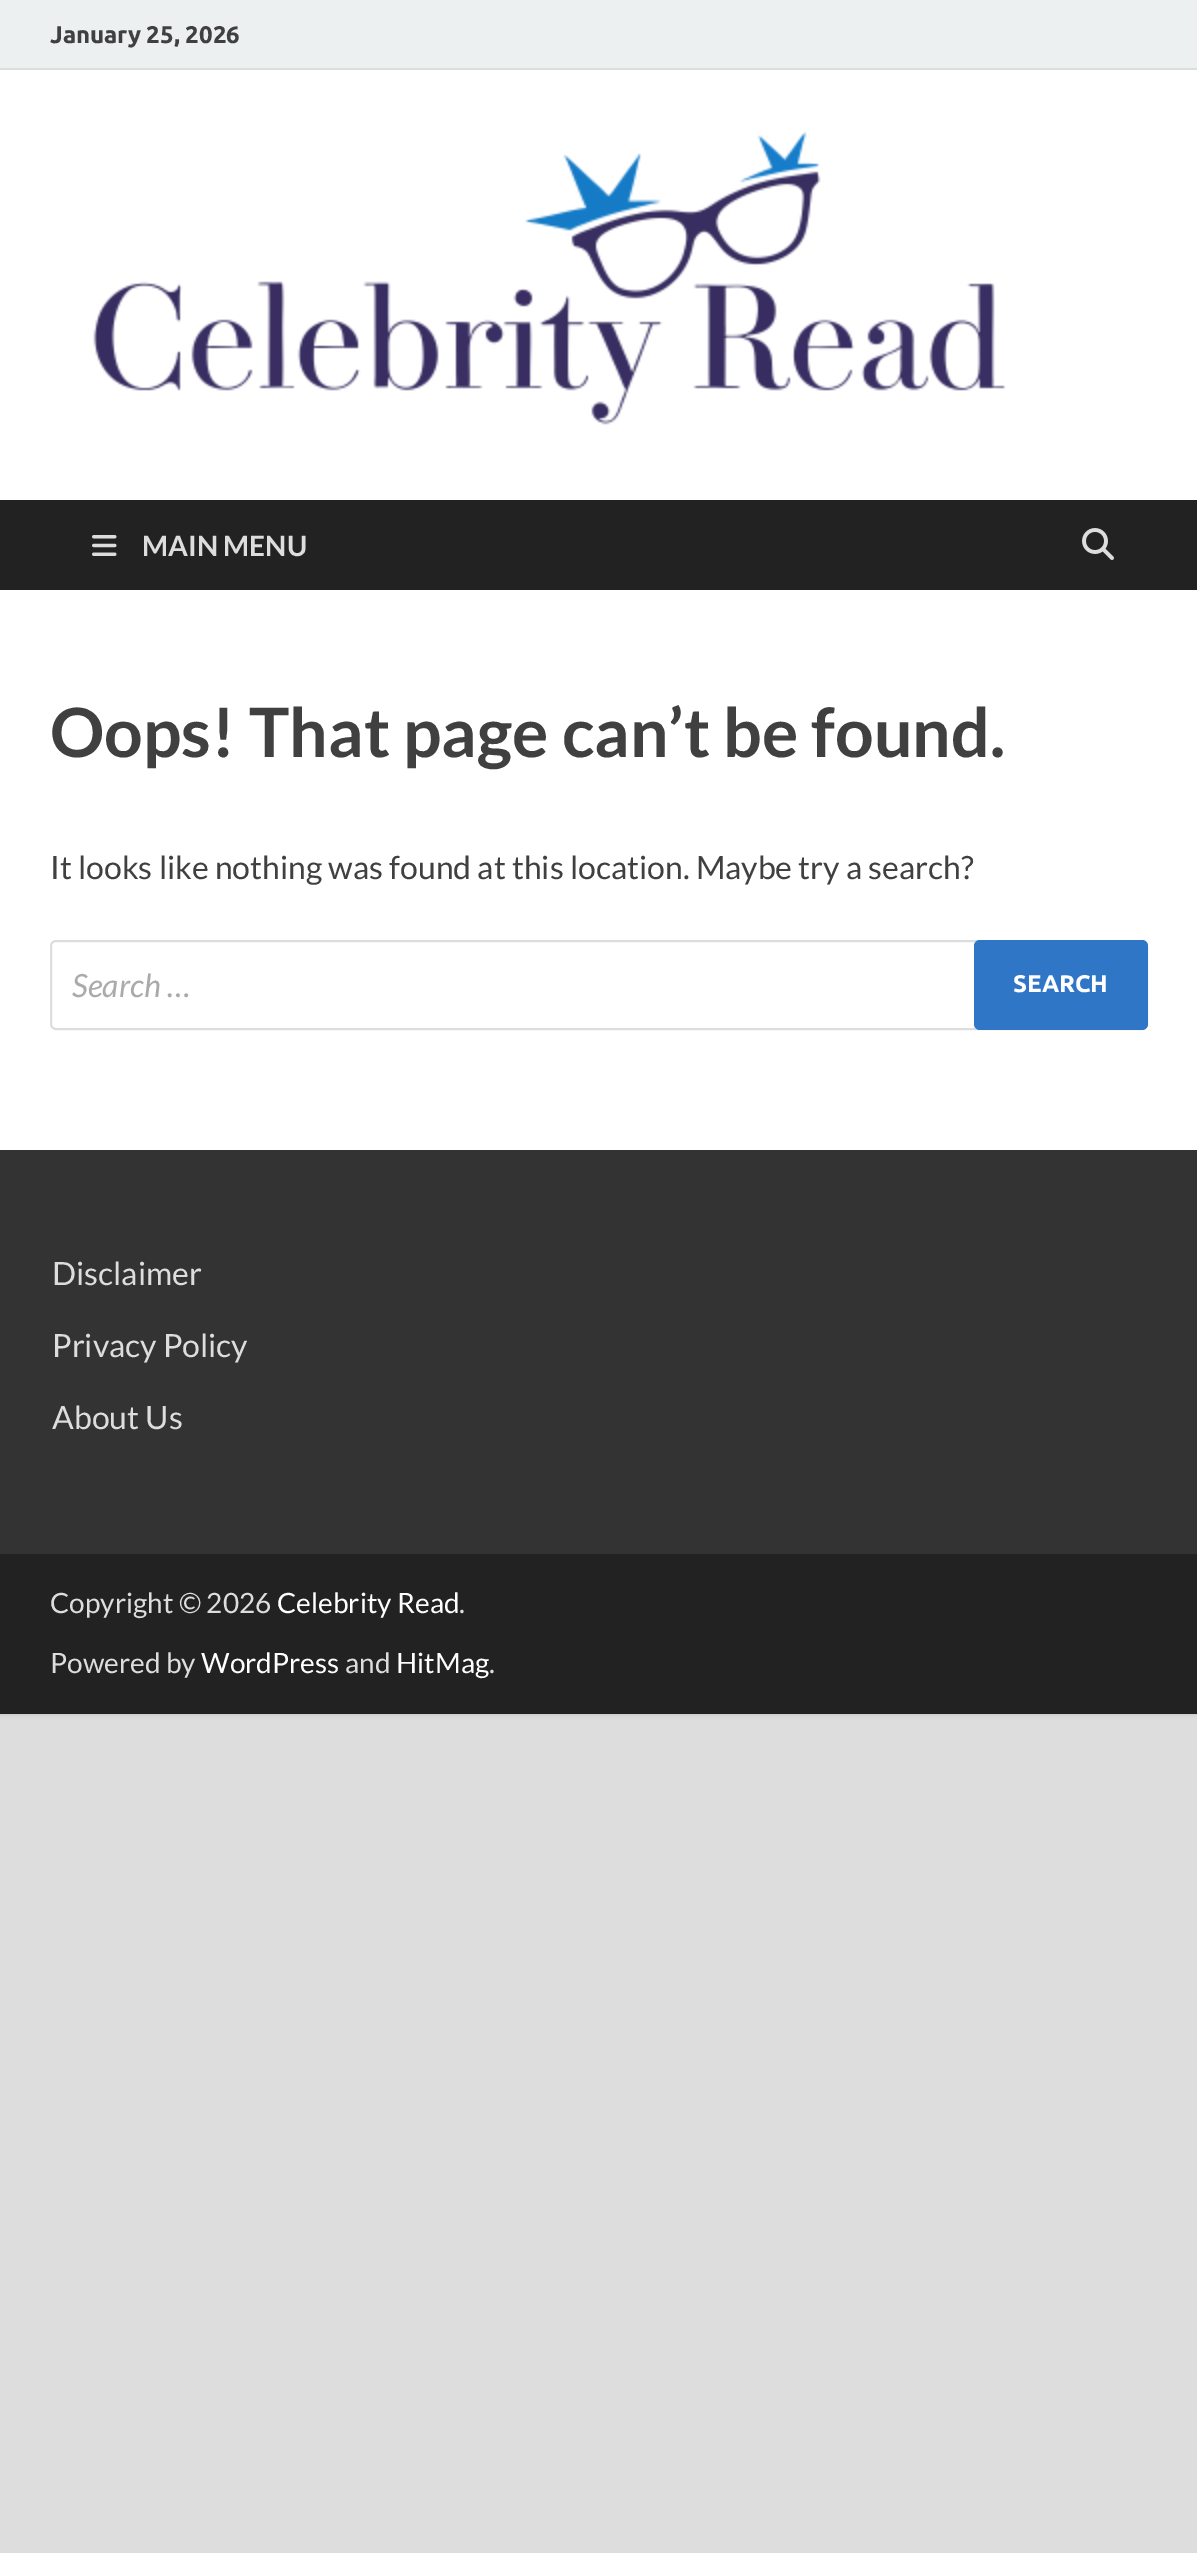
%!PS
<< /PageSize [1197 2553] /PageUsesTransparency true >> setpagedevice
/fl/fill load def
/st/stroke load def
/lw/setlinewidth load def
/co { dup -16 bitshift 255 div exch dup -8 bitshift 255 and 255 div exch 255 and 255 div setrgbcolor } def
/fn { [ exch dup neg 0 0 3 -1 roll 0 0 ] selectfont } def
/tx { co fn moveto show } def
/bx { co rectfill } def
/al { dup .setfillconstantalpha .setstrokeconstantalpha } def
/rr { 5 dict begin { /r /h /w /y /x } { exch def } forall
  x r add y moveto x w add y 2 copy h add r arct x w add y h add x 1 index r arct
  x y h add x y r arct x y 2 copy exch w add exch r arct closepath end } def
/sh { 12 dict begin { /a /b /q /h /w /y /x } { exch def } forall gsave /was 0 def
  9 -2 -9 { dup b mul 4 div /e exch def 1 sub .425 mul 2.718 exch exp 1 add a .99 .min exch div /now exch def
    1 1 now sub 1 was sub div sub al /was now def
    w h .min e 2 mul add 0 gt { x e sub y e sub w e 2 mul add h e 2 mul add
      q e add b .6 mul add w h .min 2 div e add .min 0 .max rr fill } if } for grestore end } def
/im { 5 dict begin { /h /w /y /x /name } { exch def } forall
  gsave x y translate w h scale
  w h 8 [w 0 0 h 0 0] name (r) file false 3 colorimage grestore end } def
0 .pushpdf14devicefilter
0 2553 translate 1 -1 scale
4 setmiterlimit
0 0 1197 2553 16#DDDDDD bx
16#BBBBBB co
0 0 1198 1714 0 2 1 sh
0 70 1197 1080 16#FFFFFF bx
0 0 1197 68 16#ECF0F1 bx
0 68 1197 2 16#DDDDDD bx
(media/1.raw) 93 131 913 294 im
0 500 1197 90 16#222222 bx
(media/2.raw) 92 535 25 21 im
(media/3.raw) 1082 528 32 32 im
16#DDDDDD co
2 lw
51 941 1096 88 5 rr st
16#2F76C6 co
974 940 174 90 6 rr fl
0 1150 1197 404 16#333333 bx
0 1554 1197 160 16#222222 bx
(January 25, 2026) 50 43 /Ubuntu-Bold 24 16#404040 tx
(MAIN MENU) 142 556 /Lato-Bold 28 16#DDDDDD tx
(Oops! That page can’t be found.) 50 757 /Lato-Bold 68 16#404040 tx
(It looks like nothing was found at this location. Maybe try a search?) 50 879 /Lato-Regular 32 16#404040 tx
(Search …) 72 997 /Lato-Italic 32 16#AAAAAA tx
(SEARCH) 1013 992 /Ubuntu-Bold 24 16#FFFFFF tx
(Disclaimer) 52 1285 /Lato-Regular 32 16#DDDDDD tx
(Privacy Policy) 52 1357 /Lato-Regular 32 16#DDDDDD tx
(About Us) 52 1429 /Lato-Regular 32 16#DDDDDD tx
(Copyright © 2026) 50 1613 /Lato-Regular 28 16#DDDDDD tx
(Celebrity Read) 277 1613 /Lato-Regular 28 16#FFFFFF tx
(.) 459 1613 /Lato-Regular 28 16#DDDDDD tx
(Powered by) 50 1673 /Lato-Regular 28 16#DDDDDD tx
(WordPress) 201 1673 /Lato-Regular 28 16#FFFFFF tx
(and) 345 1673 /Lato-Regular 28 16#DDDDDD tx
(HitMag) 396 1673 /Lato-Regular 28 16#FFFFFF tx
(.) 489 1673 /Lato-Regular 28 16#DDDDDD tx
.poppdf14devicefilter showpage
